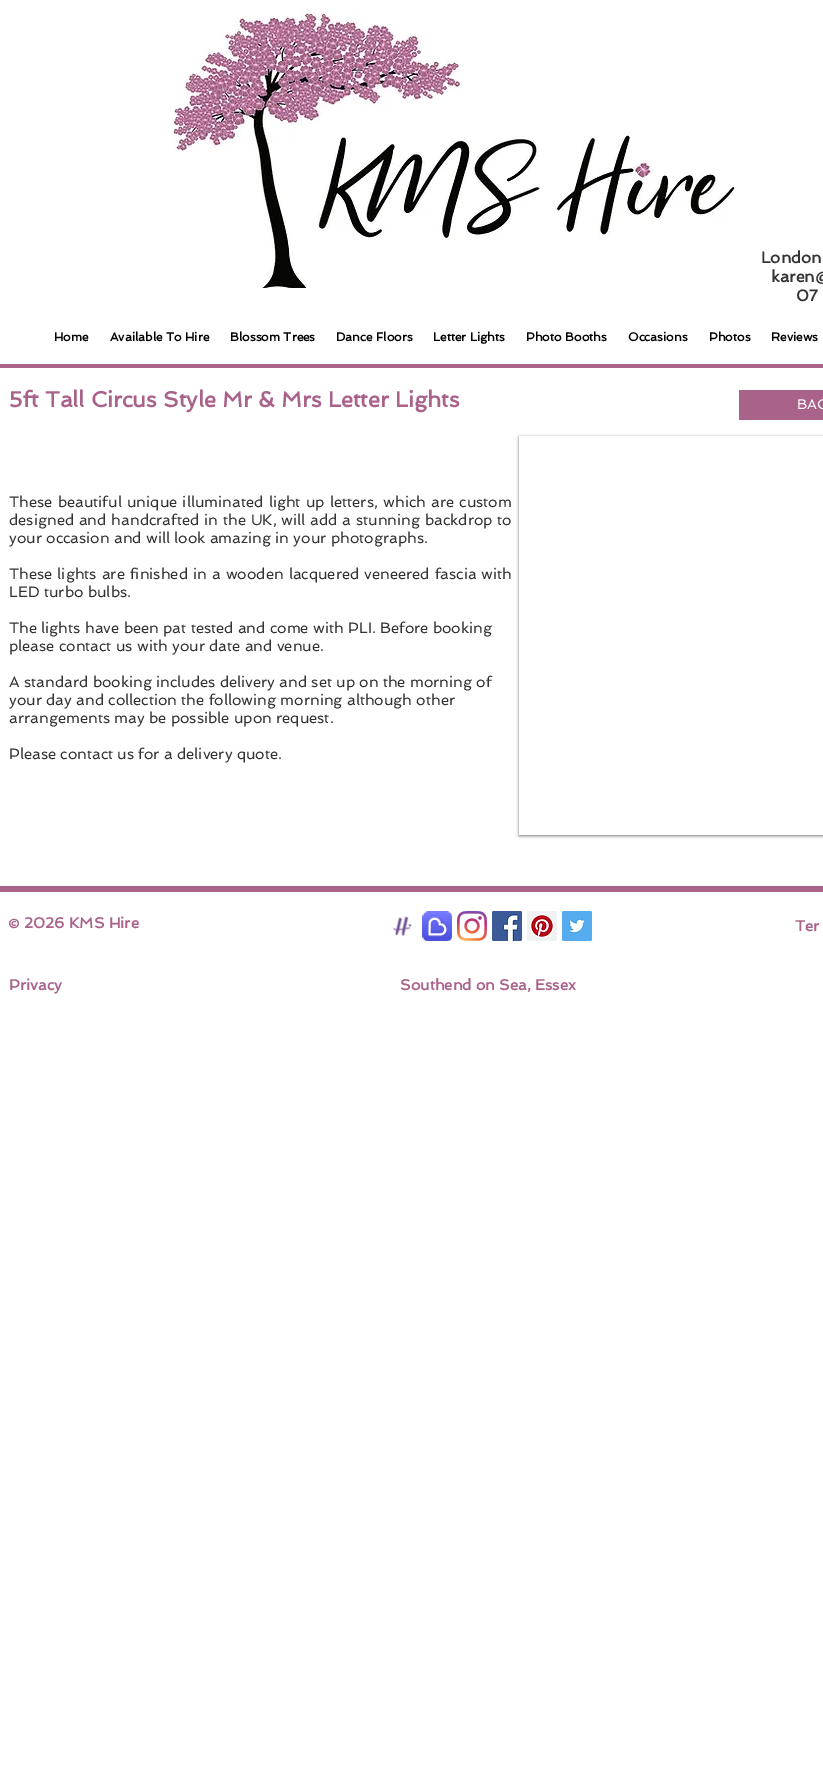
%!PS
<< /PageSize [823 1774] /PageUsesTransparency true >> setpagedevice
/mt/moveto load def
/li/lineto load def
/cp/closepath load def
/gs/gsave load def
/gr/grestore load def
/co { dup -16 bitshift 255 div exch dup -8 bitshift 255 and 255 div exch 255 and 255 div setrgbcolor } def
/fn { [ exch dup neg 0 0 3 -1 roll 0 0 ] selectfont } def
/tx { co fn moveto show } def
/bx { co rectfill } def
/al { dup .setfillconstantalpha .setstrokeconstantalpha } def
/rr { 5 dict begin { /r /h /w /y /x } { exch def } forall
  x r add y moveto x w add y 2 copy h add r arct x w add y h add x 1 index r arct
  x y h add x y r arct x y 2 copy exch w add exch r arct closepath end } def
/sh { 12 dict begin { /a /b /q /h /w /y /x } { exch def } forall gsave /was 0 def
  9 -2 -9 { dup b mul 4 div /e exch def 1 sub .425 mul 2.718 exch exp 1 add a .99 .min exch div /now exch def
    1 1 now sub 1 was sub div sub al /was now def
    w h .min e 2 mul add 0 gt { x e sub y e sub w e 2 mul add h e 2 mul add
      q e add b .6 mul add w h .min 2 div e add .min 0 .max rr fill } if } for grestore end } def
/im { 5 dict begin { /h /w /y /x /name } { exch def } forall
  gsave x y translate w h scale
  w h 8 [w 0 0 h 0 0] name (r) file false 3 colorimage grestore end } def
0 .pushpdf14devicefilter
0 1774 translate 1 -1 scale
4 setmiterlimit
0 0 823 1774 16#FFFFFF bx
(media/1.raw) 171 8 566 280 im
0 364 823 4 16#A9628A bx
739 390 84 30 16#A9628A bx
gs
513 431 mt 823 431 li 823 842 li 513 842 li cp 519 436 mt 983 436 li 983 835 li 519 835 li cp eoclip newpath
16#000000 co
519 437 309 399 0 1.5 .5 sh
gr
0 886 823 6 16#A9628A bx
(media/2.raw) 393 916 19 21 im
(media/3.raw) 422 911 30 30 im
(media/4.raw) 457 911 30 30 im
(media/5.raw) 492 911 30 30 im
(media/6.raw) 527 911 30 30 im
(media/7.raw) 562 911 30 30 im
(London) 761 263 /Spinnaker-Bold 16 16#333333 tx
(karen@) 771 282 /Spinnaker-Bold 16 16#333333 tx
(07) 796 301 /Spinnaker-Bold 16 16#333333 tx
(Home) 54 341 /Spinnaker-Bold 12 16#000000 tx
(Available To Hire) 110 341 /Spinnaker-Bold 12 16#000000 tx
(Blossom Trees) 230 341 /Spinnaker-Bold 12 16#000000 tx
(Dance Floors) 336 341 /Spinnaker-Bold 12 16#000000 tx
(Letter Lights) 433 341 /Spinnaker-Bold 12 16#000000 tx
(Photo Booths) 526 341 /Spinnaker-Bold 12 16#000000 tx
(Occasions) 628 341 /Spinnaker-Bold 12 16#000000 tx
(Photos) 709 341 /Spinnaker-Bold 12 16#000000 tx
(Reviews) 771 341 /Spinnaker-Bold 12 16#000000 tx
(5ft Tall Circus Style Mr & Mrs Letter Lights) 9 407 /Spinnaker-Bold 22 16#A9628A tx
(BAC) 797 409 /Spinnaker-Regular 14 16#FFFFFF tx
/Spinnaker-Regular 15 fn
16#333333 co
9 507 mt 1 0 32 (These beautiful unique illuminated light up letters, which are custom) widthshow
9 525 mt .5 0 32 (designed and handcrafted in the UK, will add a stunning backdrop to) widthshow
(your occasion and will look amazing in your photographs.) 9 543 /Spinnaker-Regular 15 16#333333 tx
9 579 mt .75 0 32 (These lights are finished in a wooden lacquered veneered fascia with) widthshow
(LED turbo bulbs.) 9 597 /Spinnaker-Regular 15 16#333333 tx
(The lights have been pat tested and come with PLI. Before booking) 9 633 /Spinnaker-Regular 15 16#333333 tx
(please contact us with your date and venue.) 9 651 /Spinnaker-Regular 15 16#333333 tx
(A standard booking includes delivery and set up on the morning of) 9 687 /Spinnaker-Regular 15 16#333333 tx
(your day and collection the following morning although other) 9 705 /Spinnaker-Regular 15 16#333333 tx
(arrangements may be possible upon request.) 9 723 /Spinnaker-Regular 15 16#333333 tx
(Please contact us for a delivery quote.) 9 759 /Spinnaker-Regular 15 16#333333 tx
(© 2026 KMS Hire) 8 928 /Spinnaker-Bold 15 16#A9628A tx
(Ter) 795 931 /Spinnaker-Bold 15 16#A9628A tx
(Privacy) 9 990 /Spinnaker-Bold 15 16#A9628A tx
(Southend on Sea, Essex) 400 990 /Spinnaker-Bold 15 16#A9628A tx
.poppdf14devicefilter showpage
